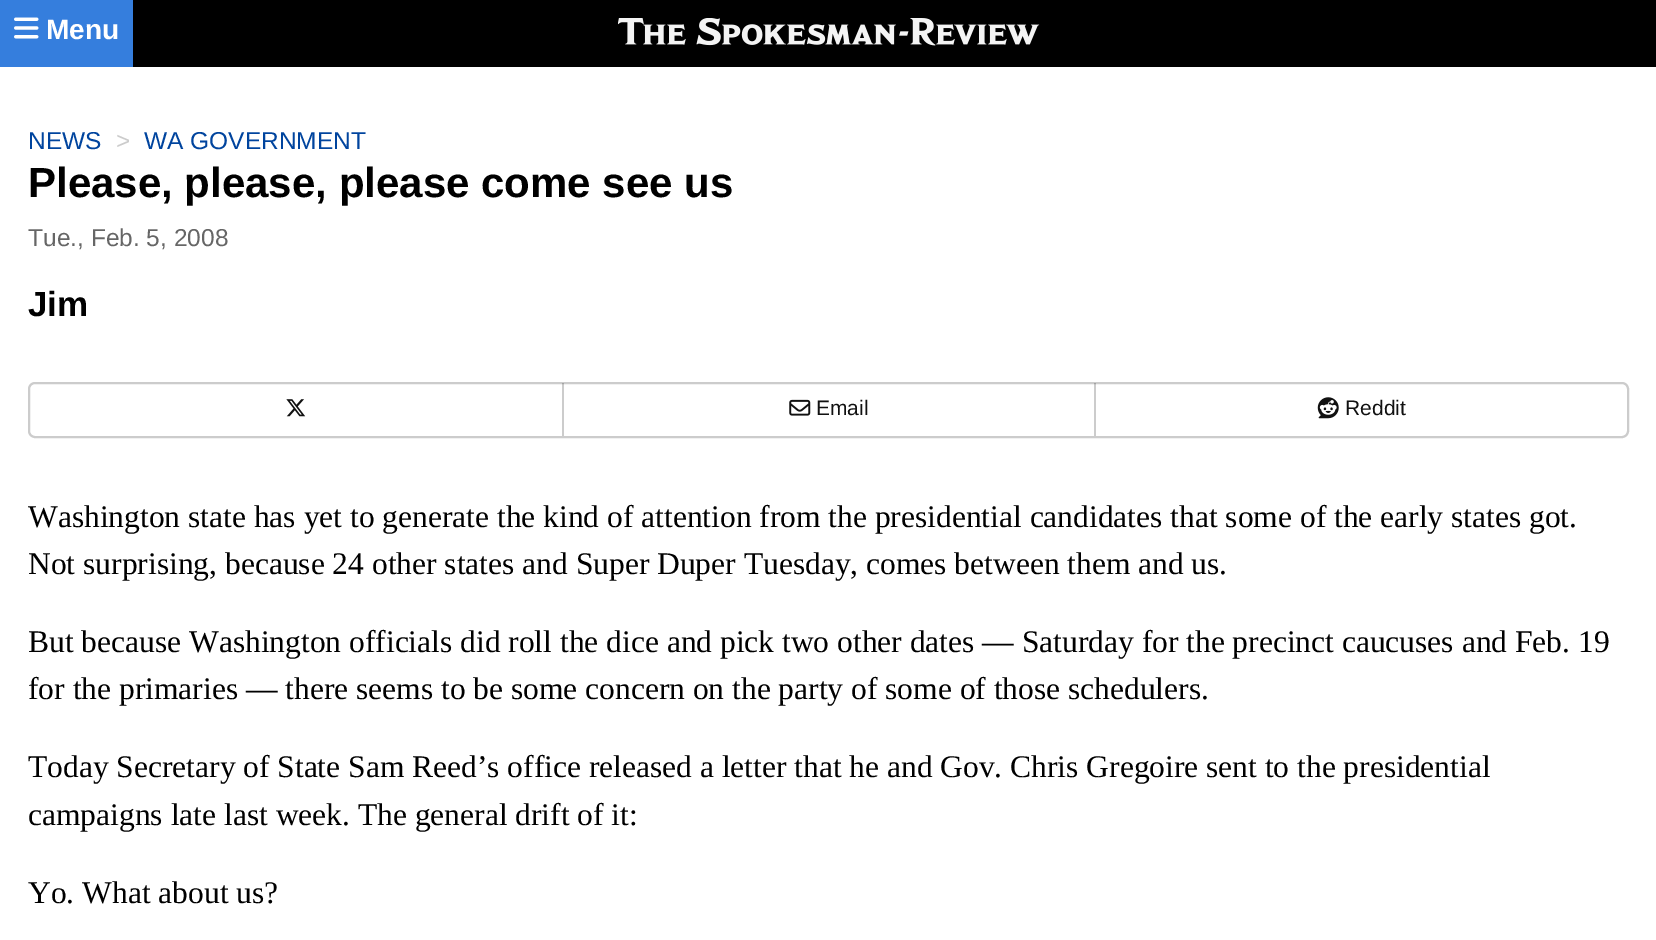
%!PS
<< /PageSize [1656 940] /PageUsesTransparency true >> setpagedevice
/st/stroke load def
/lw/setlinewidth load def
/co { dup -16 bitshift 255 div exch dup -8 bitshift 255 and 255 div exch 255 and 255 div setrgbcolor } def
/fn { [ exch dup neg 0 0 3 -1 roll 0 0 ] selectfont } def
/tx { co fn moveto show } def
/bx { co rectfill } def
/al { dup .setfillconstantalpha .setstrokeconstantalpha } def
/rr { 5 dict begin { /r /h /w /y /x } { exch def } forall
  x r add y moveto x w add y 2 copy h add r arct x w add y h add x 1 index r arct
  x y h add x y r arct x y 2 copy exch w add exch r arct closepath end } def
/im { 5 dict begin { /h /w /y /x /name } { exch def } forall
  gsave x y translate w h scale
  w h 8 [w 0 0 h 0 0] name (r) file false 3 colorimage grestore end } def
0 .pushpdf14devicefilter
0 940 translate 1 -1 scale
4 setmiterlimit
0 0 1656 940 16#FFFFFF bx
133 0 1523 67 16#000000 bx
0 0 133 67 16#357EDD bx
(media/1.raw) 14 17 25 22 im
(media/2.raw) 618 18 422 28 im
16#CCCCCC co
2 lw
29 383 1599 54 6 rr st
0.2 al
562 383 2 53 16#000000 bx
1 al
(media/3.raw) 286 399 20 18 im
0.2 al
1094 383 2 53 16#000000 bx
1 al
(media/4.raw) 789 399 22 17 im
(media/5.raw) 1317 397 22 22 im
(Menu) 46 39 /LiberationSans-Bold 28 16#FFFFFF tx
(NEWS) 28 149 /LiberationSans-Regular 24.5 16#00449E tx
(>) 116 149 /LiberationSans-Regular 24.5 16#CCCCCC tx
(WA GOVERNMENT) 144 149 /LiberationSans-Regular 24.5 16#00449E tx
(Please, please, please come see us) 28 197 /LiberationSans-Bold 42 16#000000 tx
(Tue., Feb. 5, 2008) 28 246 /LiberationSans-Regular 24.5 16#666666 tx
(Jim) 28 316 /LiberationSans-Bold 35 16#000000 tx
(Email) 816 415 /LiberationSans-Regular 21 16#111111 tx
(Reddit) 1345 415 /LiberationSans-Regular 21 16#111111 tx
(Washington state has yet to generate the kind of attention from the presidential candidates that some of the early states got.) 28 527 /LiberationSerif-Regular 31.5 16#000000 tx
(Not surprising, because 24 other states and Super Duper Tuesday, comes between them and us.) 28 574 /LiberationSerif-Regular 31.5 16#000000 tx
(But because Washington officials did roll the dice and pick two other dates — Saturday for the precinct caucuses and Feb. 19) 28 652 /LiberationSerif-Regular 31.5 16#000000 tx
(for the primaries — there seems to be some concern on the party of some of those schedulers.) 28 699 /LiberationSerif-Regular 31.5 16#000000 tx
(Today Secretary of State Sam Reed’s office released a letter that he and Gov. Chris Gregoire sent to the presidential) 28 777 /LiberationSerif-Regular 31.5 16#000000 tx
(campaigns late last week. The general drift of it:) 28 825 /LiberationSerif-Regular 31.5 16#000000 tx
(Yo. What about us?) 28 903 /LiberationSerif-Regular 31.5 16#000000 tx
.poppdf14devicefilter showpage
